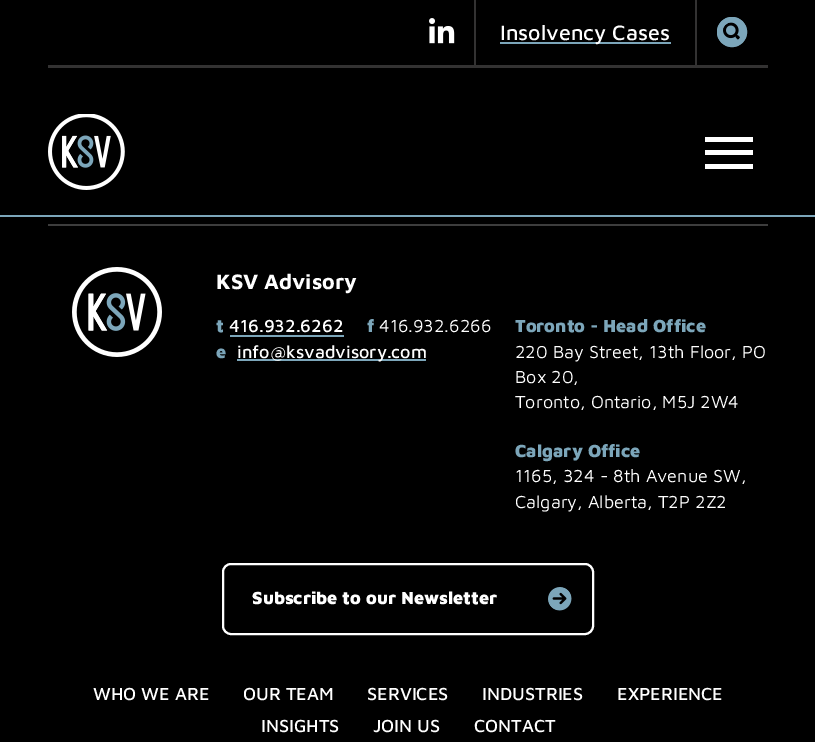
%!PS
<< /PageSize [815 742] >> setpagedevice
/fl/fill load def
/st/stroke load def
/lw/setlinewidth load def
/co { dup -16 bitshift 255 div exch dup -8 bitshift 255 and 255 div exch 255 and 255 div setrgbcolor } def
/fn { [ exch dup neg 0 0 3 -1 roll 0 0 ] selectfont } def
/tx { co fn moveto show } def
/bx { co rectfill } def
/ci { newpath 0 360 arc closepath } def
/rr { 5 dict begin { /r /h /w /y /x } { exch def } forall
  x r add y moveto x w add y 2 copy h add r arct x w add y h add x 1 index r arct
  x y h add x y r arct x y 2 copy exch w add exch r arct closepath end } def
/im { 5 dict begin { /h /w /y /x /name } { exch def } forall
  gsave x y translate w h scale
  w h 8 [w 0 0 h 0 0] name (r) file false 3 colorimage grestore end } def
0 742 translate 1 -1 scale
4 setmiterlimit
0 0 815 742 16#000000 bx
0 215 815 2 16#7CA6BA bx
48 65 720 3 16#333232 bx
474 0 2 65 16#333232 bx
(media/1.raw) 429 18 26 26 im
695 0 2 65 16#333232 bx
500 42 171 2 16#7CA6BA bx
732 32 15 ci fl
(media/2.raw) 723 22 18 18 im
5 lw
732 32 12.5 ci st
(media/3.raw) 48 114 77 76 im
705 137 48 5 16#FFFFFF bx
705 150 48 5 16#FFFFFF bx
705 164 48 5 16#FFFFFF bx
48 224 720 2 16#3D3D3D bx
(media/4.raw) 72 267 90 90 im
230 335 114 2 16#7CA6BA bx
237 359 189 2 16#7CA6BA bx
16#FFFFFF co
2 lw
223 564 370 70 8 rr st
(media/5.raw) 548 587 24 24 im
(Insolvency Cases) 500 40 /MavenPro-Medium 21.5 16#FFFFFF tx
(KSV Advisory) 216 289 /MavenPro-Bold 21.5 16#FFFFFF tx
(t) 216 332 /MavenPro-Black 18 16#7CA6BA tx
(416.932.6262) 229 332 /MavenPro-Medium 18 16#FFFFFF tx
(f) 367 332 /MavenPro-Black 18 16#7CA6BA tx
(416.932.6266) 379 332 /MavenPro-Regular 18 16#FFFFFF tx
(e) 216 358 /MavenPro-Black 18 16#7CA6BA tx
(info@ksvadvisory.com) 237 358 /MavenPro-Medium 18 16#FFFFFF tx
(Toronto - Head Office) 515 332 /MavenPro-Black 18 16#7CA6BA tx
(220 Bay Street, 13th Floor, PO) 515 358 /MavenPro-Regular 18 16#FFFFFF tx
(Box 20,) 515 383 /MavenPro-Regular 18 16#FFFFFF tx
(Toronto, Ontario, M5J 2W4) 515 408 /MavenPro-Regular 18 16#FFFFFF tx
(Calgary Office) 515 457 /MavenPro-Black 18 16#7CA6BA tx
(1165, 324 - 8th Avenue SW,) 515 482 /MavenPro-Regular 18 16#FFFFFF tx
(Calgary, Alberta, T2P 2Z2) 515 508 /MavenPro-Regular 18 16#FFFFFF tx
(Subscribe to our Newsletter) 252 604 /MavenPro-Black 18 16#FFFFFF tx
(WHO WE ARE) 93 700 /MavenPro-Medium 18 16#FFFFFF tx
(OUR TEAM) 243 700 /MavenPro-Medium 18 16#FFFFFF tx
(SERVICES) 367 700 /MavenPro-Medium 18 16#FFFFFF tx
(INDUSTRIES) 482 700 /MavenPro-Medium 18 16#FFFFFF tx
(EXPERIENCE) 617 700 /MavenPro-Medium 18 16#FFFFFF tx
(INSIGHTS) 261 732 /MavenPro-Medium 18 16#FFFFFF tx
(JOIN US) 373 732 /MavenPro-Medium 18 16#FFFFFF tx
(CONTACT) 474 732 /MavenPro-Medium 18 16#FFFFFF tx
showpage
